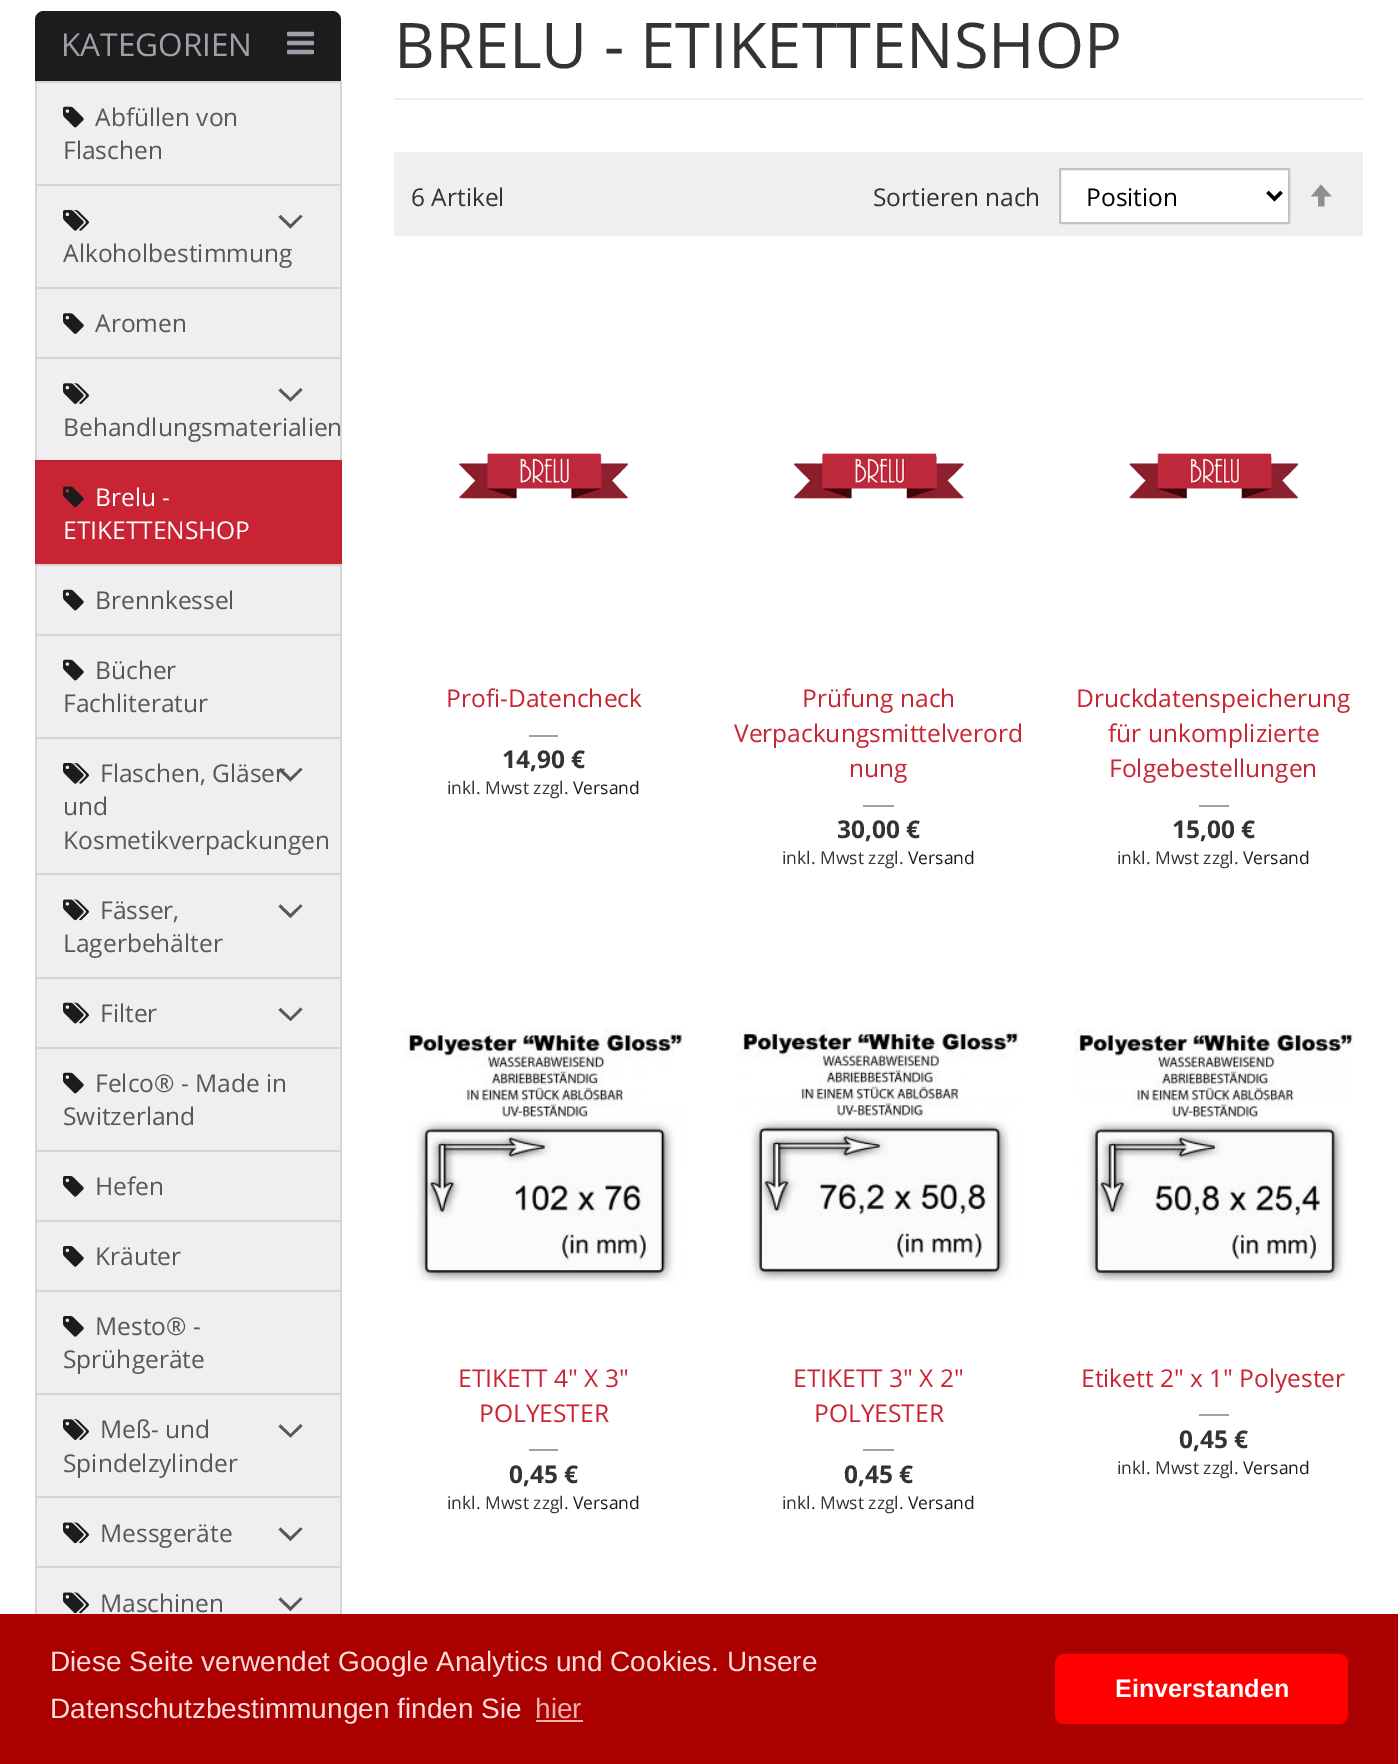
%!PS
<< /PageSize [1398 1764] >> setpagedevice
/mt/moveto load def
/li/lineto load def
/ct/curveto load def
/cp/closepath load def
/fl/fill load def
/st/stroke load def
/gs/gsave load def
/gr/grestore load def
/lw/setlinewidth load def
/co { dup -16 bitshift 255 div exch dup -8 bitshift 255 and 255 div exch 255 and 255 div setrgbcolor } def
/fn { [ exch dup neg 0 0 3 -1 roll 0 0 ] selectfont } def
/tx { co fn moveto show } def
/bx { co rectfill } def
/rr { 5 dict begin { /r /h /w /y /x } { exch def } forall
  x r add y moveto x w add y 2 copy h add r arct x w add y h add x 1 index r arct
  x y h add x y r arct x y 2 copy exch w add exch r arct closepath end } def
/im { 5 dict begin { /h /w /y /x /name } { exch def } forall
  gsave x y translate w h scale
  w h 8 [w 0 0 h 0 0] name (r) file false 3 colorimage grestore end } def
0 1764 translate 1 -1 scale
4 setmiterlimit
0 0 1398 1764 16#FFFFFF bx
16#1C1C1C co
44 11 mt 332 11 li 337 11 341 15 341 20 ct 341 81 li 35 81 li 35 20 li 35 15 39 11 44 11 ct cp fl
(media/1.raw) 287 31 27 24 im
37 83 303 101 16#F0EEF1 bx
35 81 306 2 16#D6D3D9 bx
340 81 2 103 16#D6D3D9 bx
35 81 2 103 16#D6D3D9 bx
(media/2.raw) 63 106 21 22 im
37 186 303 101 16#F0EEF1 bx
35 184 306 2 16#D6D3D9 bx
340 184 2 103 16#D6D3D9 bx
35 184 2 103 16#D6D3D9 bx
(media/3.raw) 63 210 26 21 im
16#575757 co
290.5 224.5 mt 280.5 215 li 278.5 217 li 290.5 228.5 li 302.5 216.5 li 300.5 215 li cp fl
37 289 303 68 16#F0EEF1 bx
35 287 306 2 16#D6D3D9 bx
340 287 2 70 16#D6D3D9 bx
35 287 2 70 16#D6D3D9 bx
(media/4.raw) 63 313 21 21 im
37 359 303 101 16#F0EEF1 bx
35 357 306 2 16#D6D3D9 bx
340 357 2 103 16#D6D3D9 bx
35 357 2 103 16#D6D3D9 bx
(media/5.raw) 63 383 26 21 im
16#575757 co
290.5 398 mt 280.5 388.5 li 278.5 390.5 li 290.5 401.5 li 302.5 390 li 300.5 388 li cp fl
37 462 303 102 16#C92434 bx
35 460 306 2 16#BC2231 bx
340 460 2 104 16#BC2231 bx
35 460 2 104 16#BC2231 bx
(media/6.raw) 63 486 21 22 im
37 566 303 68 16#F0EEF1 bx
35 564 306 2 16#D6D3D9 bx
340 564 2 70 16#D6D3D9 bx
35 564 2 70 16#D6D3D9 bx
(media/2.raw) 63 589 21 22 im
37 636 303 101 16#F0EEF1 bx
35 634 306 2 16#D6D3D9 bx
340 634 2 103 16#D6D3D9 bx
35 634 2 103 16#D6D3D9 bx
(media/2.raw) 63 659 21 22 im
37 739 303 134 16#F0EEF1 bx
35 737 306 2 16#D6D3D9 bx
340 737 2 136 16#D6D3D9 bx
35 737 2 136 16#D6D3D9 bx
(media/3.raw) 63 763 26 21 im
16#575757 co
290.5 777.5 mt 280.5 768 li 278.5 770 li 290.5 781.5 li 302.5 769.5 li 300.5 768 li cp fl
37 875 303 102 16#F0EEF1 bx
35 873 306 2 16#D6D3D9 bx
340 873 2 104 16#D6D3D9 bx
35 873 2 104 16#D6D3D9 bx
(media/7.raw) 63 899 26 22 im
16#575757 co
290.5 914 mt 280.5 904.5 li 278.5 906.5 li 290.5 918 li 302.5 906 li 300.5 904.5 li cp fl
37 979 303 68 16#F0EEF1 bx
35 977 306 2 16#D6D3D9 bx
340 977 2 70 16#D6D3D9 bx
35 977 2 70 16#D6D3D9 bx
(media/8.raw) 63 1002 26 22 im
16#575757 co
290.5 1017.5 mt 280.5 1008 li 278.5 1010 li 290.5 1021 li 302.5 1009.5 li 300.5 1007.5 li cp fl
37 1049 303 101 16#F0EEF1 bx
35 1047 306 2 16#D6D3D9 bx
340 1047 2 103 16#D6D3D9 bx
35 1047 2 103 16#D6D3D9 bx
(media/2.raw) 63 1072 21 22 im
37 1152 303 68 16#F0EEF1 bx
35 1150 306 2 16#D6D3D9 bx
340 1150 2 70 16#D6D3D9 bx
35 1150 2 70 16#D6D3D9 bx
(media/9.raw) 63 1176 21 21 im
37 1222 303 68 16#F0EEF1 bx
35 1220 306 2 16#D6D3D9 bx
340 1220 2 70 16#D6D3D9 bx
35 1220 2 70 16#D6D3D9 bx
(media/9.raw) 63 1246 21 21 im
37 1292 303 101 16#F0EEF1 bx
35 1290 306 2 16#D6D3D9 bx
340 1290 2 103 16#D6D3D9 bx
35 1290 2 103 16#D6D3D9 bx
(media/9.raw) 63 1316 21 21 im
37 1395 303 101 16#F0EEF1 bx
35 1393 306 2 16#D6D3D9 bx
340 1393 2 103 16#D6D3D9 bx
35 1393 2 103 16#D6D3D9 bx
(media/5.raw) 63 1419 26 21 im
16#575757 co
290.5 1434 mt 280.5 1424.5 li 278.5 1426.5 li 290.5 1437.5 li 302.5 1426 li 300.5 1424 li cp fl
37 1498 303 68 16#F0EEF1 bx
35 1496 306 2 16#D6D3D9 bx
340 1496 2 70 16#D6D3D9 bx
35 1496 2 70 16#D6D3D9 bx
(media/7.raw) 63 1522 26 22 im
16#575757 co
290.5 1537 mt 280.5 1527.5 li 278.5 1529.5 li 290.5 1541 li 302.5 1529 li 300.5 1527.5 li cp fl
37 1568 303 46 16#F0EEF1 bx
35 1566 306 2 16#D6D3D9 bx
340 1566 2 48 16#D6D3D9 bx
35 1566 2 48 16#D6D3D9 bx
(media/7.raw) 63 1592 26 22 im
16#575757 co
290.5 1607 mt 280.5 1597.5 li 278.5 1599.5 li 290.5 1611 li 302.5 1599 li 300.5 1597.5 li cp fl
394 98 969 2 16#F0EEF1 bx
394 152 969 84 16#F0EEF1 bx
16#FFFFFF co
1060 169 229 54 1 rr gs fl gr
16#C2C2C2 co
2 lw
st
16#000000 co
3.5 lw
1267.5 192 mt 1274.5 199 li 1281.5 192 li st
16#8F8F8F co
1321 184.5 mt 1311 196.5 li 1318 196.5 li 1318 206.5 li 1324.5 206.5 li 1324.5 196.5 li 1331.5 196.5 li cp fl
(media/10.raw) 459 453 169 46 im
529 735 29 2 16#A39DA9 bx
(media/11.raw) 794 453 170 46 im
863 805 31 2 16#A39DA9 bx
(media/12.raw) 1129 453 170 47 im
1199 805 30 2 16#A39DA9 bx
(media/13.raw) 403 1028 280 254 im
529 1449 29 2 16#A39DA9 bx
(media/14.raw) 738 1028 281 254 im
863 1449 31 2 16#A39DA9 bx
(media/15.raw) 1074 1028 279 254 im
1199 1414 30 2 16#A39DA9 bx
0 1614 1398 150 16#AA0000 bx
536 1720 47 2 16#EEB1B1 bx
16#FF0000 co
1055 1654 293 70 9 rr fl
(KATEGORIEN) 61 56 /OpenSans-Regular 31.5 16#A39DA9 tx
(Abfüllen von) 95 126 /OpenSans-Regular 24.5 16#575757 tx
(Flaschen) 63 159 /OpenSans-Regular 24.5 16#575757 tx
(Alkoholbestimmung) 63 262 /OpenSans-Regular 24.5 16#575757 tx
(Aromen) 95 332 /OpenSans-Regular 24.5 16#575757 tx
(Behandlungsmaterialien) 63 436 /OpenSans-Regular 24.5 16#575757 tx
(Brelu -) 95 506 /OpenSans-Regular 24.5 16#FFFFFF tx
(ETIKETTENSHOP) 63 539 /OpenSans-Regular 24.5 16#FFFFFF tx
(Brennkessel) 95 609 /OpenSans-Regular 24.5 16#575757 tx
(Bücher) 95 679 /OpenSans-Regular 24.5 16#575757 tx
(Fachliteratur) 63 712 /OpenSans-Regular 24.5 16#575757 tx
(Flaschen, Gläser) 100 782 /OpenSans-Regular 24.5 16#575757 tx
(und) 63 815 /OpenSans-Regular 24.5 16#575757 tx
(Kosmetikverpackungen) 63 849 /OpenSans-Regular 24.5 16#575757 tx
(Fässer,) 100 919 /OpenSans-Regular 24.5 16#575757 tx
(Lagerbehälter) 63 952 /OpenSans-Regular 24.5 16#575757 tx
(Filter) 100 1022 /OpenSans-Regular 24.5 16#575757 tx
(Felco® - Made in) 95 1092 /OpenSans-Regular 24.5 16#575757 tx
(Switzerland) 63 1125 /OpenSans-Regular 24.5 16#575757 tx
(Hefen) 95 1195 /OpenSans-Regular 24.5 16#575757 tx
(Kräuter) 95 1265 /OpenSans-Regular 24.5 16#575757 tx
(Mesto® -) 95 1335 /OpenSans-Regular 24.5 16#575757 tx
(Sprühgeräte) 63 1368 /OpenSans-Regular 24.5 16#575757 tx
(Meß- und) 100 1438 /OpenSans-Regular 24.5 16#575757 tx
(Spindelzylinder) 63 1472 /OpenSans-Regular 24.5 16#575757 tx
(Messgeräte) 100 1542 /OpenSans-Regular 24.5 16#575757 tx
(Maschinen) 100 1612 /OpenSans-Regular 24.5 16#575757 tx
(BRELU - ETIKETTENSHOP) 394 68 /OpenSans-Regular 63 16#333333 tx
(6 Artikel) 411 206 /OpenSans-Regular 24.5 16#333333 tx
(Sortieren nach) 873 206 /OpenSans-Regular 24.5 16#333333 tx
(Position) 1086 206 /OpenSans-Regular 24.5 16#000000 tx
(Profi-Datencheck) 446 707 /OpenSans-Regular 24.5 16#C92434 tx
(14,90 €) 502 768 /OpenSans-Bold 24.5 16#333333 tx
(inkl. Mwst zzgl.) 447 794 /OpenSans-Regular 17.5 16#333333 tx
(Versand) 573 794 /OpenSans-Regular 17.5 16#1C1C1C tx
(Prüfung nach) 802 707 /OpenSans-Regular 24.5 16#C92434 tx
(Verpackungsmittelverord) 734 742 /OpenSans-Regular 24.5 16#C92434 tx
(nung) 849 777 /OpenSans-Regular 24.5 16#C92434 tx
(30,00 €) 837 838 /OpenSans-Bold 24.5 16#333333 tx
(inkl. Mwst zzgl.) 782 864 /OpenSans-Regular 17.5 16#333333 tx
(Versand) 908 864 /OpenSans-Regular 17.5 16#1C1C1C tx
(Druckdatenspeicherung) 1076 707 /OpenSans-Regular 24.5 16#C92434 tx
(für unkomplizierte) 1108 742 /OpenSans-Regular 24.5 16#C92434 tx
(Folgebestellungen) 1109 777 /OpenSans-Regular 24.5 16#C92434 tx
(15,00 €) 1172 838 /OpenSans-Bold 24.5 16#333333 tx
(inkl. Mwst zzgl.) 1117 864 /OpenSans-Regular 17.5 16#333333 tx
(Versand) 1243 864 /OpenSans-Regular 17.5 16#1C1C1C tx
(ETIKETT 4" X 3") 458 1387 /OpenSans-Regular 24.5 16#C92434 tx
(POLYESTER) 479 1422 /OpenSans-Regular 24.5 16#C92434 tx
(0,45 €) 509 1483 /OpenSans-Bold 24.5 16#333333 tx
(inkl. Mwst zzgl.) 447 1509 /OpenSans-Regular 17.5 16#333333 tx
(Versand) 573 1509 /OpenSans-Regular 17.5 16#1C1C1C tx
(ETIKETT 3" X 2") 793 1387 /OpenSans-Regular 24.5 16#C92434 tx
(POLYESTER) 814 1422 /OpenSans-Regular 24.5 16#C92434 tx
(0,45 €) 844 1483 /OpenSans-Bold 24.5 16#333333 tx
(inkl. Mwst zzgl.) 782 1509 /OpenSans-Regular 17.5 16#333333 tx
(Versand) 908 1509 /OpenSans-Regular 17.5 16#1C1C1C tx
(Etikett 2" x 1" Polyester) 1081 1387 /OpenSans-Regular 24.5 16#C92434 tx
(0,45 €) 1179 1448 /OpenSans-Bold 24.5 16#333333 tx
(inkl. Mwst zzgl.) 1117 1474 /OpenSans-Regular 17.5 16#333333 tx
(Versand) 1243 1474 /OpenSans-Regular 17.5 16#1C1C1C tx
(Diese Seite verwendet Google Analytics und Cookies. Unsere) 50 1671 /LiberationSans-Regular 28 16#FFDDDD tx
(Datenschutzbestimmungen finden Sie) 50 1718 /LiberationSans-Regular 28 16#FFDDDD tx
(hier) 535 1718 /LiberationSans-Regular 28 16#EEB1B1 tx
(Einverstanden) 1115 1697 /LiberationSans-Bold 25.25 16#FFFFFF tx
showpage
